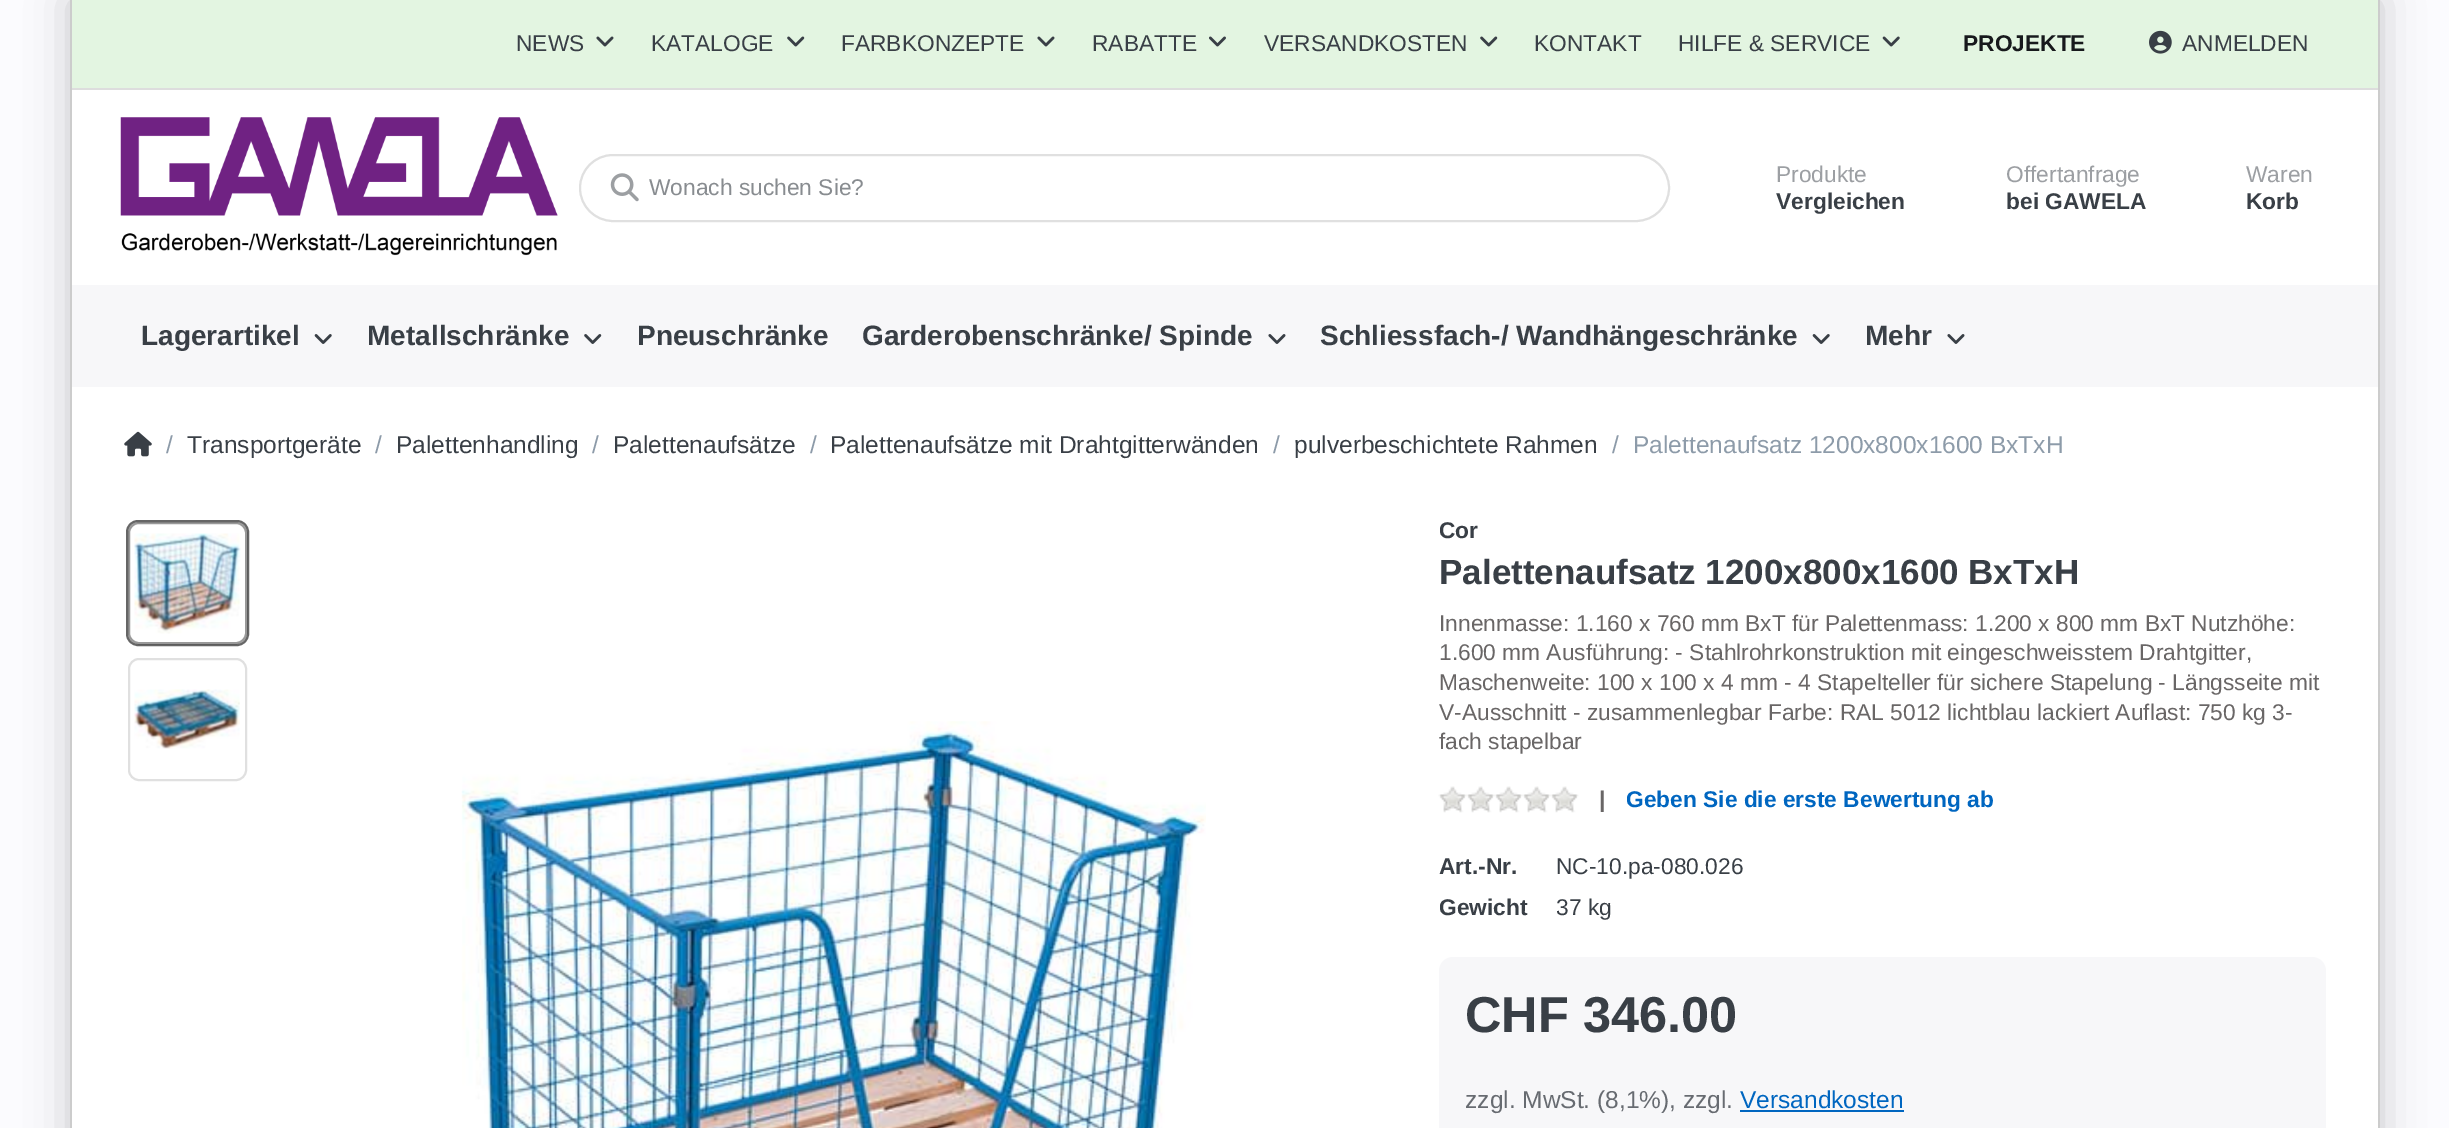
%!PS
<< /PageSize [2449 1128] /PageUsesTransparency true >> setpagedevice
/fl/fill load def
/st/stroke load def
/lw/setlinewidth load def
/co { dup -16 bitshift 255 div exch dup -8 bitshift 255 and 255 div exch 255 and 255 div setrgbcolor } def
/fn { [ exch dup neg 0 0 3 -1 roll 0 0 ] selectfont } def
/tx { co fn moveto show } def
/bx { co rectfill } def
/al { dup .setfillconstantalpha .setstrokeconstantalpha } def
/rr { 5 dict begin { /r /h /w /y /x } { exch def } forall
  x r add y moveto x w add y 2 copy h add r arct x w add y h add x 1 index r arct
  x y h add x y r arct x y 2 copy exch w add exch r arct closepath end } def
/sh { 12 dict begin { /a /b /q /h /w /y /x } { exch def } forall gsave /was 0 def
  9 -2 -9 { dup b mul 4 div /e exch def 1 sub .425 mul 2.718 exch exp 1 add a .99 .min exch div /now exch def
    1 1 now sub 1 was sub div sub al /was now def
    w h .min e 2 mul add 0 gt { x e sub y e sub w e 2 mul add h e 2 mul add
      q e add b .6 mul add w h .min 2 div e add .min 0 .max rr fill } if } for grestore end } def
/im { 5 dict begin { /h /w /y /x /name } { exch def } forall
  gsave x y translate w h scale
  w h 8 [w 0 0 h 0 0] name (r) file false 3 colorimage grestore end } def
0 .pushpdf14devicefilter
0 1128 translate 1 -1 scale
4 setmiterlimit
0 0 2449 1128 16#FBFBFE bx
16#000000 co
70 0 2310 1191 0 21 .2 sh
72 90 2306 1038 16#FFFFFF bx
2378 0 2 1128 16#CCCCCC bx
70 0 2 1128 16#CCCCCC bx
72 0 2306 88 16#E3F5E1 bx
72 88 2306 2 16#DDDDDD bx
(media/1.raw) 596 36 18 11 im
(media/2.raw) 787 36 18 11 im
(media/1.raw) 1037 36 18 11 im
(media/3.raw) 1209 36 17 11 im
(media/2.raw) 1480 36 18 11 im
(media/4.raw) 1882 36 18 11 im
(media/5.raw) 2149 30 23 24 im
(media/6.raw) 120 117 438 139 im
16#E0E0E0 co
2 lw
580 155 1089 66 33 rr st
(media/7.raw) 610 173 29 29 im
72 285 2306 102 16#F7F7F9 bx
(media/8.raw) 314 334 18 10 im
(media/9.raw) 584 334 18 10 im
(media/10.raw) 1268 334 18 10 im
(media/8.raw) 1812 334 18 10 im
(media/10.raw) 1947 334 18 10 im
(media/11.raw) 124 431 28 26 im
16#666666 co
127 521 121 124 11 rr st
0.4 al
16#000000 co
129 523 117 120 10 rr st
1 al
(media/12.raw) 134 533 107 101 im
16#E0E0E0 co
129 659 117 121 10 rr st
(media/13.raw) 134 689 106 60 im
(media/14.raw) 461 721 745 407 im
(media/15.raw) 1438 786 141 27 im
16#F7F7F9 co
1439 957 887 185 14 rr fl
1740 1110 164 2 16#0066C0 bx
(NEWS) 516 51 /LiberationSans-Regular 22.75 16#393F46 tx
(KATALOGE) 651 51 /LiberationSans-Regular 22.75 16#393F46 tx
(FARBKONZEPTE) 841 51 /LiberationSans-Regular 22.75 16#393F46 tx
(RABATTE) 1092 51 /LiberationSans-Regular 22.75 16#393F46 tx
(VERSANDKOSTEN) 1264 51 /LiberationSans-Regular 22.75 16#393F46 tx
(KONTAKT) 1534 51 /LiberationSans-Regular 22.75 16#393F46 tx
(HILFE & SERVICE) 1678 51 /LiberationSans-Regular 22.75 16#393F46 tx
(PROJEKTE) 1963 51 /LiberationSans-Bold 22.75 16#17191C tx
(ANMELDEN) 2182 51 /LiberationSans-Regular 22.75 16#393F46 tx
(Wonach suchen Sie?) 649 195 /LiberationSans-Regular 22.75 16#888C90 tx
(Produkte) 1776 182 /LiberationSans-Regular 22.75 16#9C9FA3 tx
(Vergleichen) 1776 209 /LiberationSans-Bold 22.75 16#393F46 tx
(Offertanfrage) 2006 182 /LiberationSans-Regular 22.75 16#9C9FA3 tx
(bei GAWELA) 2006 209 /LiberationSans-Bold 22.75 16#393F46 tx
(Waren) 2246 182 /LiberationSans-Regular 22.75 16#9C9FA3 tx
(Korb) 2246 209 /LiberationSans-Bold 22.75 16#393F46 tx
(Lagerartikel) 141 345 /LiberationSans-Bold 28 16#393F46 tx
(Metallschränke) 367 345 /LiberationSans-Bold 28 16#393F46 tx
(Pneuschränke) 637 345 /LiberationSans-Bold 28 16#393F46 tx
(Garderobenschränke/ Spinde) 862 345 /LiberationSans-Bold 28 16#393F46 tx
(Schliessfach-/ Wandhängeschränke) 1320 345 /LiberationSans-Bold 28 16#393F46 tx
(Mehr) 1865 345 /LiberationSans-Bold 28 16#393F46 tx
(/) 166 453 /LiberationSans-Regular 24.5 16#8D9BA9 tx
(Transportgeräte) 187 453 /LiberationSans-Regular 24.5 16#393F46 tx
(/) 375 453 /LiberationSans-Regular 24.5 16#8D9BA9 tx
(Palettenhandling) 396 453 /LiberationSans-Regular 24.5 16#393F46 tx
(/) 592 453 /LiberationSans-Regular 24.5 16#8D9BA9 tx
(Palettenaufsätze) 613 453 /LiberationSans-Regular 24.5 16#393F46 tx
(/) 810 453 /LiberationSans-Regular 24.5 16#8D9BA9 tx
(Palettenaufsätze mit Drahtgitterwänden) 830 453 /LiberationSans-Regular 24.5 16#393F46 tx
(/) 1273 453 /LiberationSans-Regular 24.5 16#8D9BA9 tx
(pulverbeschichtete Rahmen) 1294 453 /LiberationSans-Regular 24.5 16#393F46 tx
(/) 1612 453 /LiberationSans-Regular 24.5 16#8D9BA9 tx
(Palettenaufsatz 1200x800x1600 BxTxH) 1633 453 /LiberationSans-Regular 24.5 16#8D9BA9 tx
(Cor) 1439 538 /LiberationSans-Bold 22.75 16#393F46 tx
(Palettenaufsatz 1200x800x1600 BxTxH) 1439 584 /LiberationSans-Bold 35 16#393F46 tx
(Innenmasse: 1.160 x 760 mm BxT für Palettenmass: 1.200 x 800 mm BxT Nutzhöhe:) 1439 631 /LiberationSans-Regular 22.75 16#696666 tx
(1.600 mm Ausführung: - Stahlrohrkonstruktion mit eingeschweisstem Drahtgitter,) 1439 660 /LiberationSans-Regular 22.75 16#696666 tx
(Maschenweite: 100 x 100 x 4 mm - 4 Stapelteller für sichere Stapelung - Längsseite mit) 1439 690 /LiberationSans-Regular 22.75 16#696666 tx
(V-Ausschnitt - zusammenlegbar Farbe: RAL 5012 lichtblau lackiert Auflast: 750 kg 3-) 1439 720 /LiberationSans-Regular 22.75 16#696666 tx
(fach stapelbar) 1439 749 /LiberationSans-Regular 22.75 16#696666 tx
(|) 1599 807 /LiberationSans-Bold 22.75 16#696666 tx
(Geben Sie die erste Bewertung ab) 1626 807 /LiberationSans-Bold 22.75 16#0066C0 tx
(Art.-Nr.) 1439 874 /LiberationSans-Bold 22.75 16#393F46 tx
(NC-10.pa-080.026) 1556 874 /LiberationSans-Regular 22.75 16#393F46 tx
(Gewicht) 1439 915 /LiberationSans-Bold 22.75 16#393F46 tx
(37 kg) 1556 915 /LiberationSans-Regular 22.75 16#393F46 tx
(CHF 346.00) 1465 1032 /LiberationSans-Bold 50.5 16#393F46 tx
(zzgl. MwSt. \(8,1%\), zzgl.) 1465 1108 /LiberationSans-Regular 24.5 16#676B71 tx
(Versandkosten) 1740 1108 /LiberationSans-Regular 24.5 16#0066C0 tx
.poppdf14devicefilter showpage
